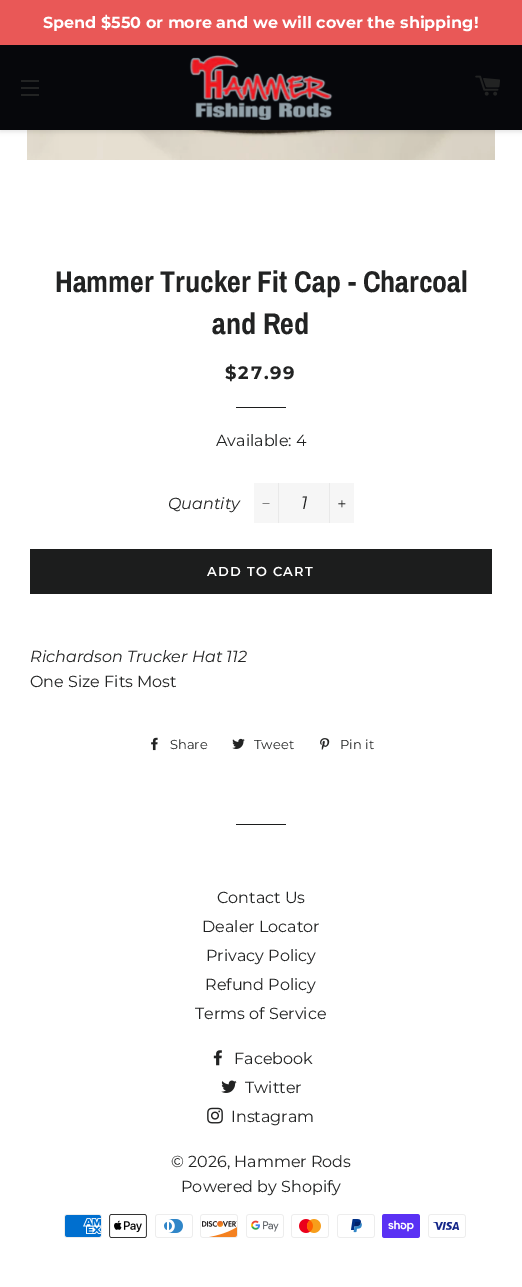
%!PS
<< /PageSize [522 1287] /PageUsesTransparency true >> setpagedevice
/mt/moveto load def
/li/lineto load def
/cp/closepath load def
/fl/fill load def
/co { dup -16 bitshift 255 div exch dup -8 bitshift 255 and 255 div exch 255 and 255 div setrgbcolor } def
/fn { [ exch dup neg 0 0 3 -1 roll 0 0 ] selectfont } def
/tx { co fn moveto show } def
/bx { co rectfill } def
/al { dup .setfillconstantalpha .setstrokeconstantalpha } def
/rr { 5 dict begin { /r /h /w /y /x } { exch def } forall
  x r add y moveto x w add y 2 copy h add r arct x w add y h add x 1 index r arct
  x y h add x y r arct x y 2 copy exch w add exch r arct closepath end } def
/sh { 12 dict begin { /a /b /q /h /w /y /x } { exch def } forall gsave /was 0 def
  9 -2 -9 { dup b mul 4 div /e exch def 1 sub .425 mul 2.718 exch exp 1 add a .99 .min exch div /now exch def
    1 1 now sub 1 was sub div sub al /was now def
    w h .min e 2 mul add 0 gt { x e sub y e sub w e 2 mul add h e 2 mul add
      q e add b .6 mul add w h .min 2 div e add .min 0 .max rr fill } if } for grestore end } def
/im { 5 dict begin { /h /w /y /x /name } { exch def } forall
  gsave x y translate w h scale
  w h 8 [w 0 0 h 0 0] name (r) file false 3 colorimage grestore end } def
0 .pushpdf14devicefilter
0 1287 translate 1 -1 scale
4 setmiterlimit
0 0 522 1287 16#FFFFFF bx
(media/3.raw) 27 130 468 30 im
16#000000 co
0 2 522 130 0 2 .1 sh
0 0 522 45 16#E95857 bx
0 45 522 85 16#06070B bx
21 80 18 2 16#222323 bx
21 87 18 2 16#222323 bx
21 94 18 2 16#222323 bx
(media/1.raw) 189 55 144 65 im
(media/2.raw) 475 75 25 21 im
236 407 50 1 16#1C1D1D bx
254 483 100 40 16#F6F6F6 bx
278 483 1 40 16#E9E9E9 bx
16#1C1D1D co
262.5 503.5 mt 269.5 503.5 li 269.5 504 li 262.5 504 li cp fl
329 483 1 40 16#E9E9E9 bx
(media/4.raw) 338 500 8 8 im
30 549 462 45 16#1C1D1D bx
(media/5.raw) 151 737 7 14 im
(media/6.raw) 232 738 13 11 im
(media/7.raw) 320 738 10 12 im
236 824 50 1 16#1C1D1D bx
(media/8.raw) 213 1050 9 16 im
(media/9.raw) 221 1080 16 13 im
(media/10.raw) 207 1107 16 17 im
(media/11.raw) 64 1214 38 24 im
(media/12.raw) 109 1214 38 24 im
(media/13.raw) 155 1214 38 24 im
(media/14.raw) 200 1214 38 24 im
(media/15.raw) 246 1214 38 24 im
(media/16.raw) 291 1214 38 24 im
(media/17.raw) 337 1214 38 24 im
(media/18.raw) 382 1214 38 24 im
(media/19.raw) 428 1214 38 24 im
(Spend $550 or more and we will cover the shipping!) 43 28 /Montserrat-Bold 16 16#FFFFFF tx
(Hammer Trucker Fit Cap - Charcoal) 55 292 /ArchivoNarrow-Bold 30 16#222323 tx
(and Red) 212 334 /ArchivoNarrow-Bold 30 16#222323 tx
/Montserrat-Bold 18 fn
225 379 mt 1.75 0 ($27.99) ashow
(Available: 4) 216 446 /Montserrat-Regular 16 16#222323 tx
(Quantity) 168 509 /Montserrat-Italic 16 16#222323 tx
(1) 301 509 /Montserrat-Italic 18 16#1C1D1D tx
/Montserrat-SemiBold 13 fn
16#FFFFFF co
207 576 mt 1.25 0 (ADD TO CART) ashow
(Richardson Trucker Hat 112) 30 662 /Montserrat-Italic 16 16#222323 tx
(One Size Fits Most) 30 687 /Montserrat-Regular 16 16#222323 tx
(Share) 170 749 /Montserrat-Regular 13 16#222323 tx
(Tweet) 254 749 /Montserrat-Regular 13 16#222323 tx
(Pin it) 340 749 /Montserrat-Regular 13 16#222323 tx
(Contact Us) 217 903 /Montserrat-Regular 16 16#222323 tx
(Dealer Locator) 202 932 /Montserrat-Regular 16 16#222323 tx
(Privacy Policy) 206 961 /Montserrat-Regular 16 16#222323 tx
(Refund Policy) 205 990 /Montserrat-Regular 16 16#222323 tx
(Terms of Service) 195 1019 /Montserrat-Regular 16 16#222323 tx
(Facebook) 234 1064 /Montserrat-Regular 16 16#222323 tx
(Twitter) 245 1093 /Montserrat-Regular 16 16#222323 tx
(Instagram) 231 1122 /Montserrat-Regular 16 16#222323 tx
(© 2026, Hammer Rods) 171 1167 /Montserrat-Regular 16 16#222323 tx
(Powered by Shopify) 181 1192 /Montserrat-Regular 16 16#222323 tx
.poppdf14devicefilter showpage
